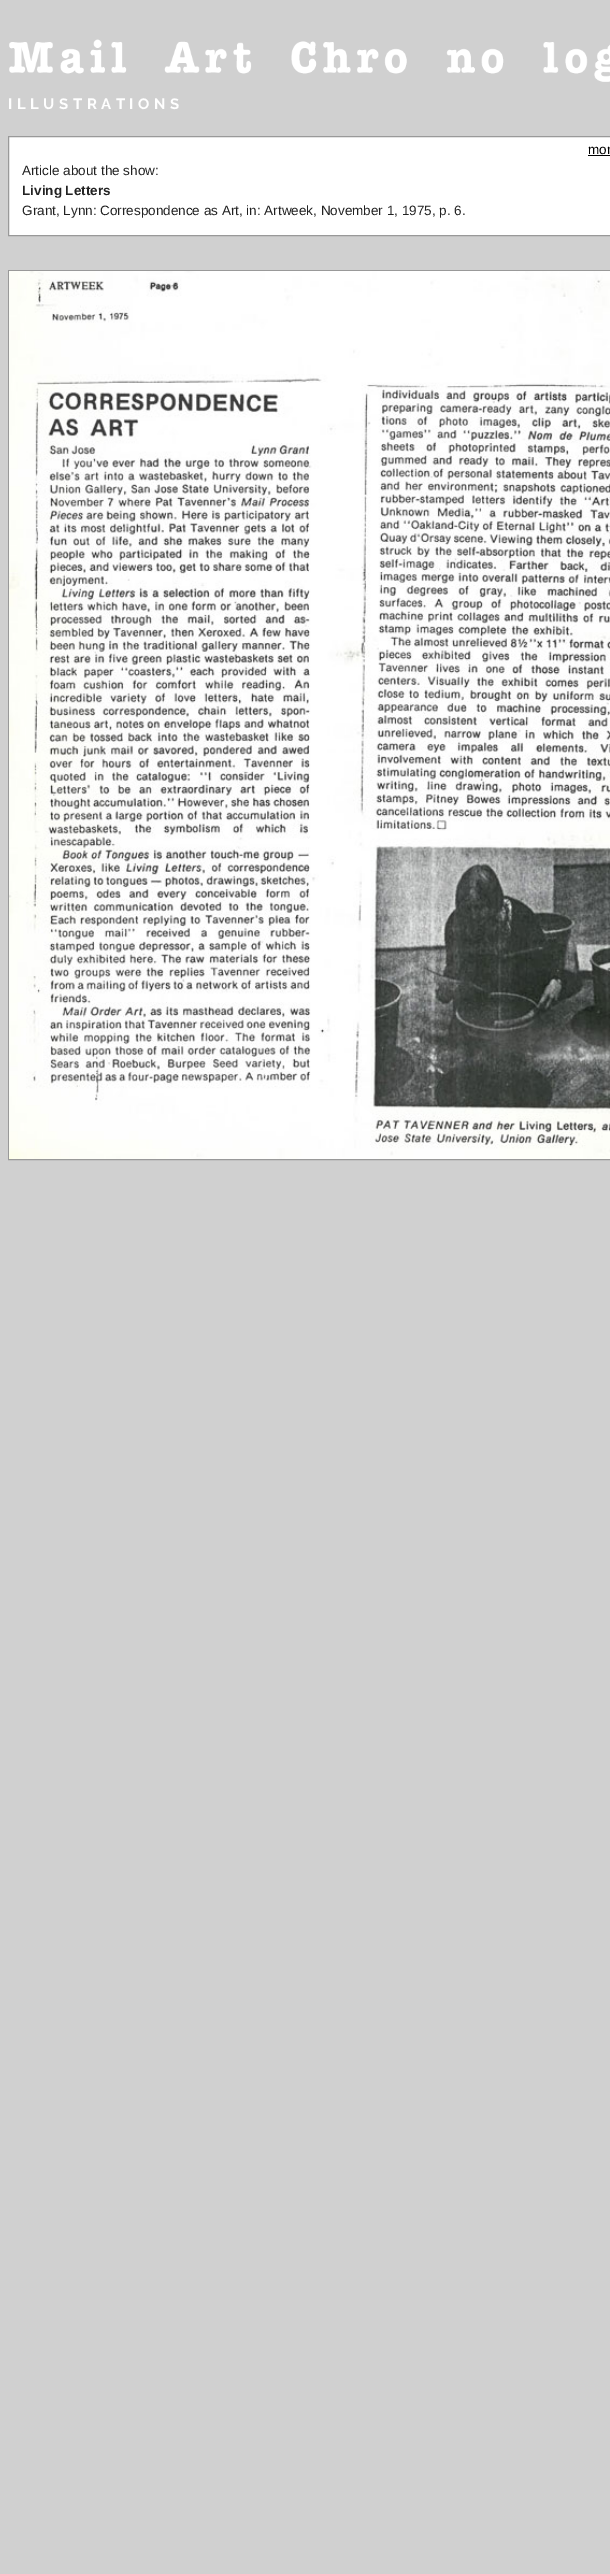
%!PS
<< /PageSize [610 2574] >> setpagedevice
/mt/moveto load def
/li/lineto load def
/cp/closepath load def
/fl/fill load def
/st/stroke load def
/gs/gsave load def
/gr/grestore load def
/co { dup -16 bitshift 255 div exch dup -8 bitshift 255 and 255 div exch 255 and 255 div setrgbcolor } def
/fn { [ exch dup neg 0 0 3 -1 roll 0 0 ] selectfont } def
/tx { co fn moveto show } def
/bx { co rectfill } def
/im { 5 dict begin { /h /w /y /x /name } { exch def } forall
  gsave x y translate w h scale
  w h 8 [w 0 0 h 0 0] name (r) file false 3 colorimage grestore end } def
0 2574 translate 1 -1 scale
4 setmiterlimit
0 0 610 2574 16#D0D0D0 bx
(media/1.raw) 9 39 601 43 im
16#FFFFFF co
8.5 136.5 mt 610.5 136.5 li 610.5 235.5 li 8.5 235.5 li cp gs fl gr
16#999999 co
st
588 155 22 1 16#000000 bx
16#999999 co
8.5 270.5 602 889 rectstroke
(media/2.raw) 9 271 601 888 im
/Raleway-Bold 15 fn
16#FFFFFF co
8 109 mt 4.5 0 (ILLUSTRATIONS) ashow
(mor) 588 154 /LiberationSans-Regular 13.5 16#000000 tx
(Article about the show:) 22 175 /LiberationSans-Regular 13.5 16#222222 tx
(Living Letters) 22 195 /LiberationSans-Bold 13.5 16#222222 tx
(Grant, Lynn: Correspondence as Art, in: Artweek, November 1, 1975, p. 6.) 22 215 /LiberationSans-Regular 13.5 16#222222 tx
showpage
